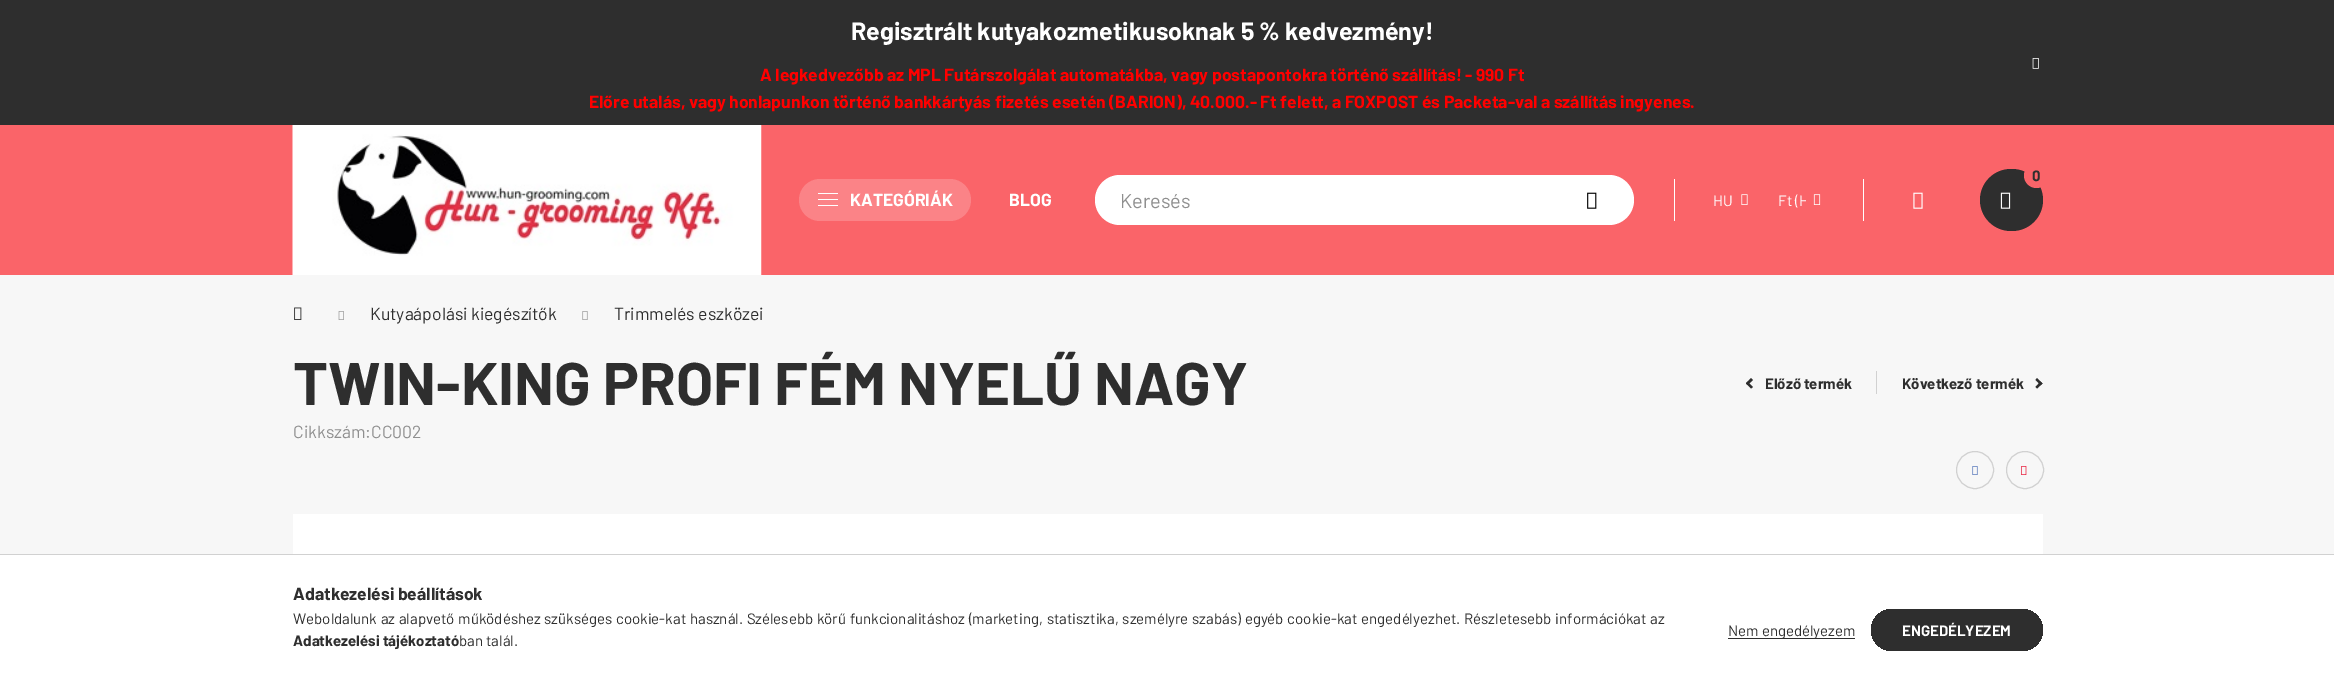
%!PS
<< /PageSize [2334 676] >> setpagedevice
/mt/moveto load def
/li/lineto load def
/cp/closepath load def
/fl/fill load def
/st/stroke load def
/gs/gsave load def
/gr/grestore load def
/co { dup -16 bitshift 255 div exch dup -8 bitshift 255 and 255 div exch 255 and 255 div setrgbcolor } def
/fn { [ exch dup neg 0 0 3 -1 roll 0 0 ] selectfont } def
/tx { co fn moveto show } def
/bx { co rectfill } def
/ci { newpath 0 360 arc closepath } def
/rr { 5 dict begin { /r /h /w /y /x } { exch def } forall
  x r add y moveto x w add y 2 copy h add r arct x w add y h add x 1 index r arct
  x y h add x y r arct x y 2 copy exch w add exch r arct closepath end } def
/im { 5 dict begin { /h /w /y /x /name } { exch def } forall
  gsave x y translate w h scale
  w h 8 [w 0 0 h 0 0] name (r) file false 3 colorimage grestore end } def
0 676 translate 1 -1 scale
4 setmiterlimit
0 0 2334 676 16#F7F7F7 bx
0 0 2334 125 16#2E2E2E bx
(media/1.raw) 2032 58 7 11 im
0 125 2334 150 16#FA6469 bx
(media/2.raw) 292 125 470 150 im
16#FB8387 co
799 179 172 42 21 rr fl
818 193 20 1 16#FFFFFF bx
818 199 20 1 16#FFFFFF bx
818 205 20 1 16#FFFFFF bx
16#2E2E2E co
1980 169 63 62 31 rr fl
16#FA6469 co
2036.5 175.5 12.5 ci fl
(media/3.raw) 2000 192 11 17 im
16#FFFFFF co
1095 175 539 50 25 rr fl
(media/4.raw) 1587 192 10 17 im
1863 179 1 42 16#FFFFFF bx
1674 179 1 42 16#FFFFFF bx
(media/5.raw) 1741 194 7 11 im
(media/6.raw) 1813 194 8 11 im
(media/7.raw) 1913 192 10 17 im
(media/8.raw) 294 307 8 13 im
(media/9.raw) 338 311 6 9 im
(media/10.raw) 582 311 6 9 im
16#2E2E2E co
1746 383.5 mt 1751 378 li 1753 380 li 1747.5 385 li cp fl
1747.5 381.5 mt 1753 387 li 1751 388.5 li 1746 383.5 li cp fl
1876 371 1 23 16#D1D1D1 bx
16#2E2E2E co
2035.5 387 mt 2040.5 381.5 li 2042.5 383.5 li 2037 388.5 li cp fl
2037 378 mt 2042.5 383.5 li 2040.5 385 li 2035.5 380 li cp fl
16#D1D1D1 co
1975 470 18.5 ci st
(media/11.raw) 1972 466 6 9 im
2025 470 18.5 ci st
(media/12.raw) 2021 466 6 9 im
293 514 1750 40 16#FFFFFF bx
0 555 2334 121 16#FFFFFF bx
0 554 2334 1 16#D1D1D1 bx
1728 638 127 1 16#2E2E2E bx
gs 1871 609 172 42 21 rr clip newpath
<< /ShadingType 2 /ColorSpace /DeviceRGB /Coords [1871 630 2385 630] /Extend [true true] /Function << /FunctionType 3 /Domain [0 1] /Functions [<< /FunctionType 2 /Domain [0 1] /C0 [.18 .18 .18] /C1 [.18 .18 .18] /N 1 >> << /FunctionType 2 /Domain [0 1] /C0 [.18 .18 .18] /C1 [.98 .392 .412] /N 1 >> << /FunctionType 2 /Domain [0 1] /C0 [.98 .392 .412] /C1 [.98 .392 .412] /N 1 >>] /Bounds [.33 .67] /Encode [0 1 0 1 0 1] >> >> shfill gr
(Regisztrált kutyakozmetikusoknak 5 % kedvezmény!) 851 40 /Barlow-Bold 25 16#FFFFFF tx
(A legkedvezőbb az MPL Futárszolgálat automatákba, vagy postapontokra történő szállítás! - 990 Ft) 760 81 /Barlow-Bold 17.5 16#FF0000 tx
(Előre utalás, vagy honlapunkon történő bankkártyás fizetés esetén \(BARION\), 40.000.- Ft felett, a FOXPOST és Packeta-val a szállítás ingyenes.) 589 108 /Barlow-Bold 17.5 16#FF0000 tx
(KATEGÓRIÁK) 850 206 /Barlow-Bold 17.5 16#FFFFFF tx
(BLOG) 1009 206 /Barlow-Bold 17.5 16#FFFFFF tx
(0) 2032 181 /Barlow-Bold 15 16#2E2E2E tx
(Keresés) 1120 208 /Barlow-Regular 20 16#8F8F8F tx
(HU) 1713 206 /Barlow-Regular 15 16#FFFFFF tx
gs
1778 189 28 22 rectclip
(Ft \(H) 1778 206 /Barlow-Regular 15 16#FFFFFF tx
gr
(Kutyaápolási kiegészítők) 370 320 /Barlow-Regular 17.5 16#2E2E2E tx
(Trimmelés eszközei) 614 320 /Barlow-Regular 17.5 16#2E2E2E tx
(TWIN-KING PROFI FÉM NYELŰ NAGY) 293 405 /Barlow-Bold 60 16#2E2E2E tx
(Előző termék) 1765 389 /Barlow-Bold 15 16#2E2E2E tx
(Következő termék) 1902 389 /Barlow-Bold 15 16#2E2E2E tx
(Cikkszám:CC002) 293 438 /Barlow-Regular 17.5 16#8F8F8F tx
(Adatkezelési beállítások) 293 600 /Barlow-Bold 17.5 16#2E2E2E tx
/Barlow-Regular 15 fn
293 624 mt .8 0 32 (Weboldalunk az alapvető működéshez szükséges cookie-kat használ. Szélesebb körű funkcionalitáshoz \(marketing, statisztika, személyre szabás\) egyéb cookie-kat engedélyezhet. Részletesebb információkat az) widthshow
(Adatkezelési tájékoztató) 293 646 /Barlow-Bold 15 16#2E2E2E tx
(ban talál.) 459 646 /Barlow-Regular 15 16#2E2E2E tx
(Nem engedélyezem) 1728 636 /Barlow-Regular 15 16#2E2E2E tx
(ENGEDÉLYEZEM) 1902 636 /Barlow-Bold 15 16#FFFFFF tx
showpage
